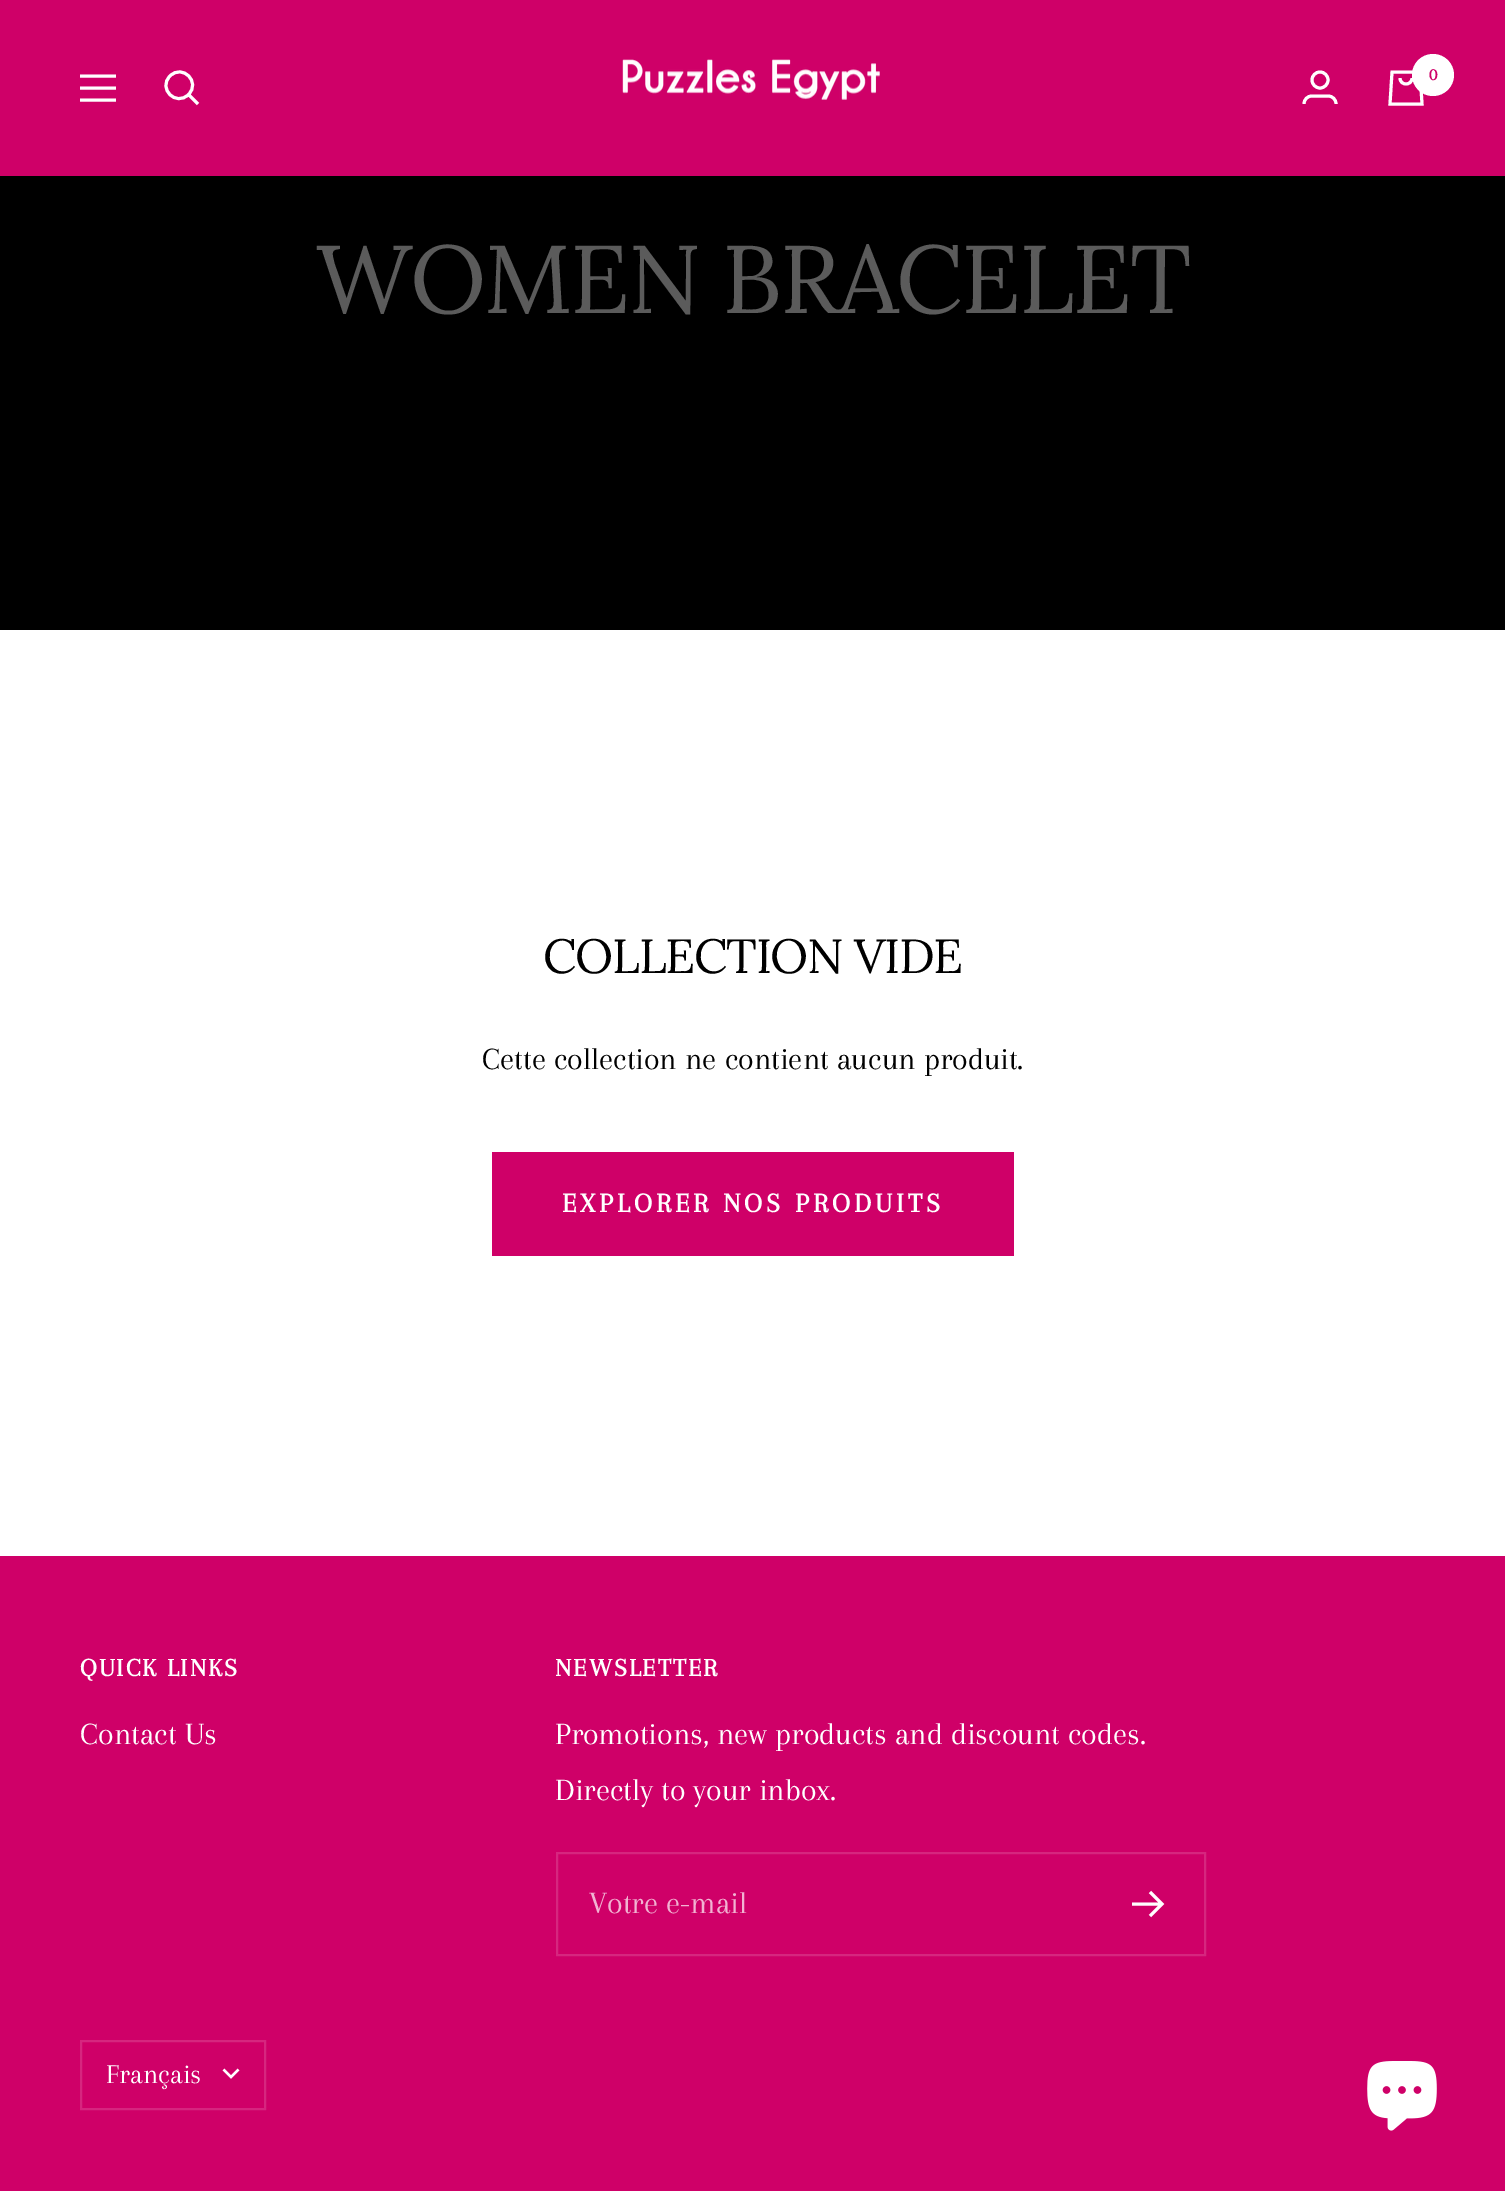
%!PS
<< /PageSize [1505 2191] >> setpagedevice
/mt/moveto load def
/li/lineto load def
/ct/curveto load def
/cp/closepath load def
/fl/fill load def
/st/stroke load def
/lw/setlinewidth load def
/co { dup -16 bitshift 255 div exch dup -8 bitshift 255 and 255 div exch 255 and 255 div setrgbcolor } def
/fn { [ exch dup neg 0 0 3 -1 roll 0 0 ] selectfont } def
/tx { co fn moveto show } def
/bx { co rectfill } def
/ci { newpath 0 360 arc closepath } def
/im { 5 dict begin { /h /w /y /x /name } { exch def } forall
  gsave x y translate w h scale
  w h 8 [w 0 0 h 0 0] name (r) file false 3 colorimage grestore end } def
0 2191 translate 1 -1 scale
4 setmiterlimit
0 0 1505 2191 16#FFFFFF bx
0 0 1505 176 16#CF0068 bx
16#FFFFFF co
3 lw
80 76 mt 116 76 li 80 100 mt 116 100 li cp 80 88 mt 116 88 li cp st
188.5 94.5 mt 201 82 182.5 63.5 170 76 ct 157.5 88.5 176 107 188.5 94.5 ct cp 188.5 94.5 mt 198 104 li st
(media/1.raw) 622 59 258 41 im
1320 80 8 ci st
1304 104 mt 1304 99.5 1307.5 96 1312 96 ct 1328 96 li 1332.5 96 1336 99.5 1336 104 ct st
1392 72 mt 1420 72 li 1422 104 li 1390 104 li cp 1400 78 mt 1400 86 1412 86 1412 78 ct st
1433 75 21 ci fl
0 176 1505 454 16#000000 bx
492 1152 522 104 16#CF0068 bx
0 1556 1505 635 16#CF0068 bx
16#D6267F co
2 lw
557 1853 648 102 rectstroke
16#FFFFFF co
3 lw
1132 1904 mt 1162 1904 li 1150 1892 mt 1162 1904 li 1150 1916 li st
16#D6267F co
2 lw
81 2041 184 68 rectstroke
16#FFFFFF co
2.2 lw
223.5 2069.5 mt 231 2077 li 238.5 2069.5 li st
(media/2.raw) 1367 2061 70 70 im
(0) 1429 80 /Arapey-Bold 18 16#CF0068 tx
/Lora-Regular 96 fn
16#5B5B5B co
316 313 mt -2 0 (WOMEN BRACELET) ashow
/Lora-Regular 48 fn
16#000000 co
543 973 mt -1.25 0 (COLLECTION VIDE) ashow
(Cette collection ne contient aucun produit.) 482 1069 /Arapey-Regular 32 16#000000 tx
/Arapey-Bold 28 fn
16#FFFFFF co
562 1212 mt 4 0 (EXPLORER NOS PRODUITS) ashow
/Arapey-Bold 26 fn
80 1676 mt 2 0 (QUICK LINKS) ashow
(Contact Us) 80 1744 /Arapey-Regular 32 16#FFFFFF tx
/Arapey-Bold 26 fn
555 1676 mt 2 0 (NEWSLETTER) ashow
(Promotions, new products and discount codes.) 555 1744 /Arapey-Regular 32 16#FFFFFF tx
(Directly to your inbox.) 555 1800 /Arapey-Regular 32 16#FFFFFF tx
(Votre e-mail) 589 1913 /Arapey-Regular 32 16#F1B3D2 tx
(Français) 106 2083 /Arapey-Regular 28 16#FFFFFF tx
showpage
